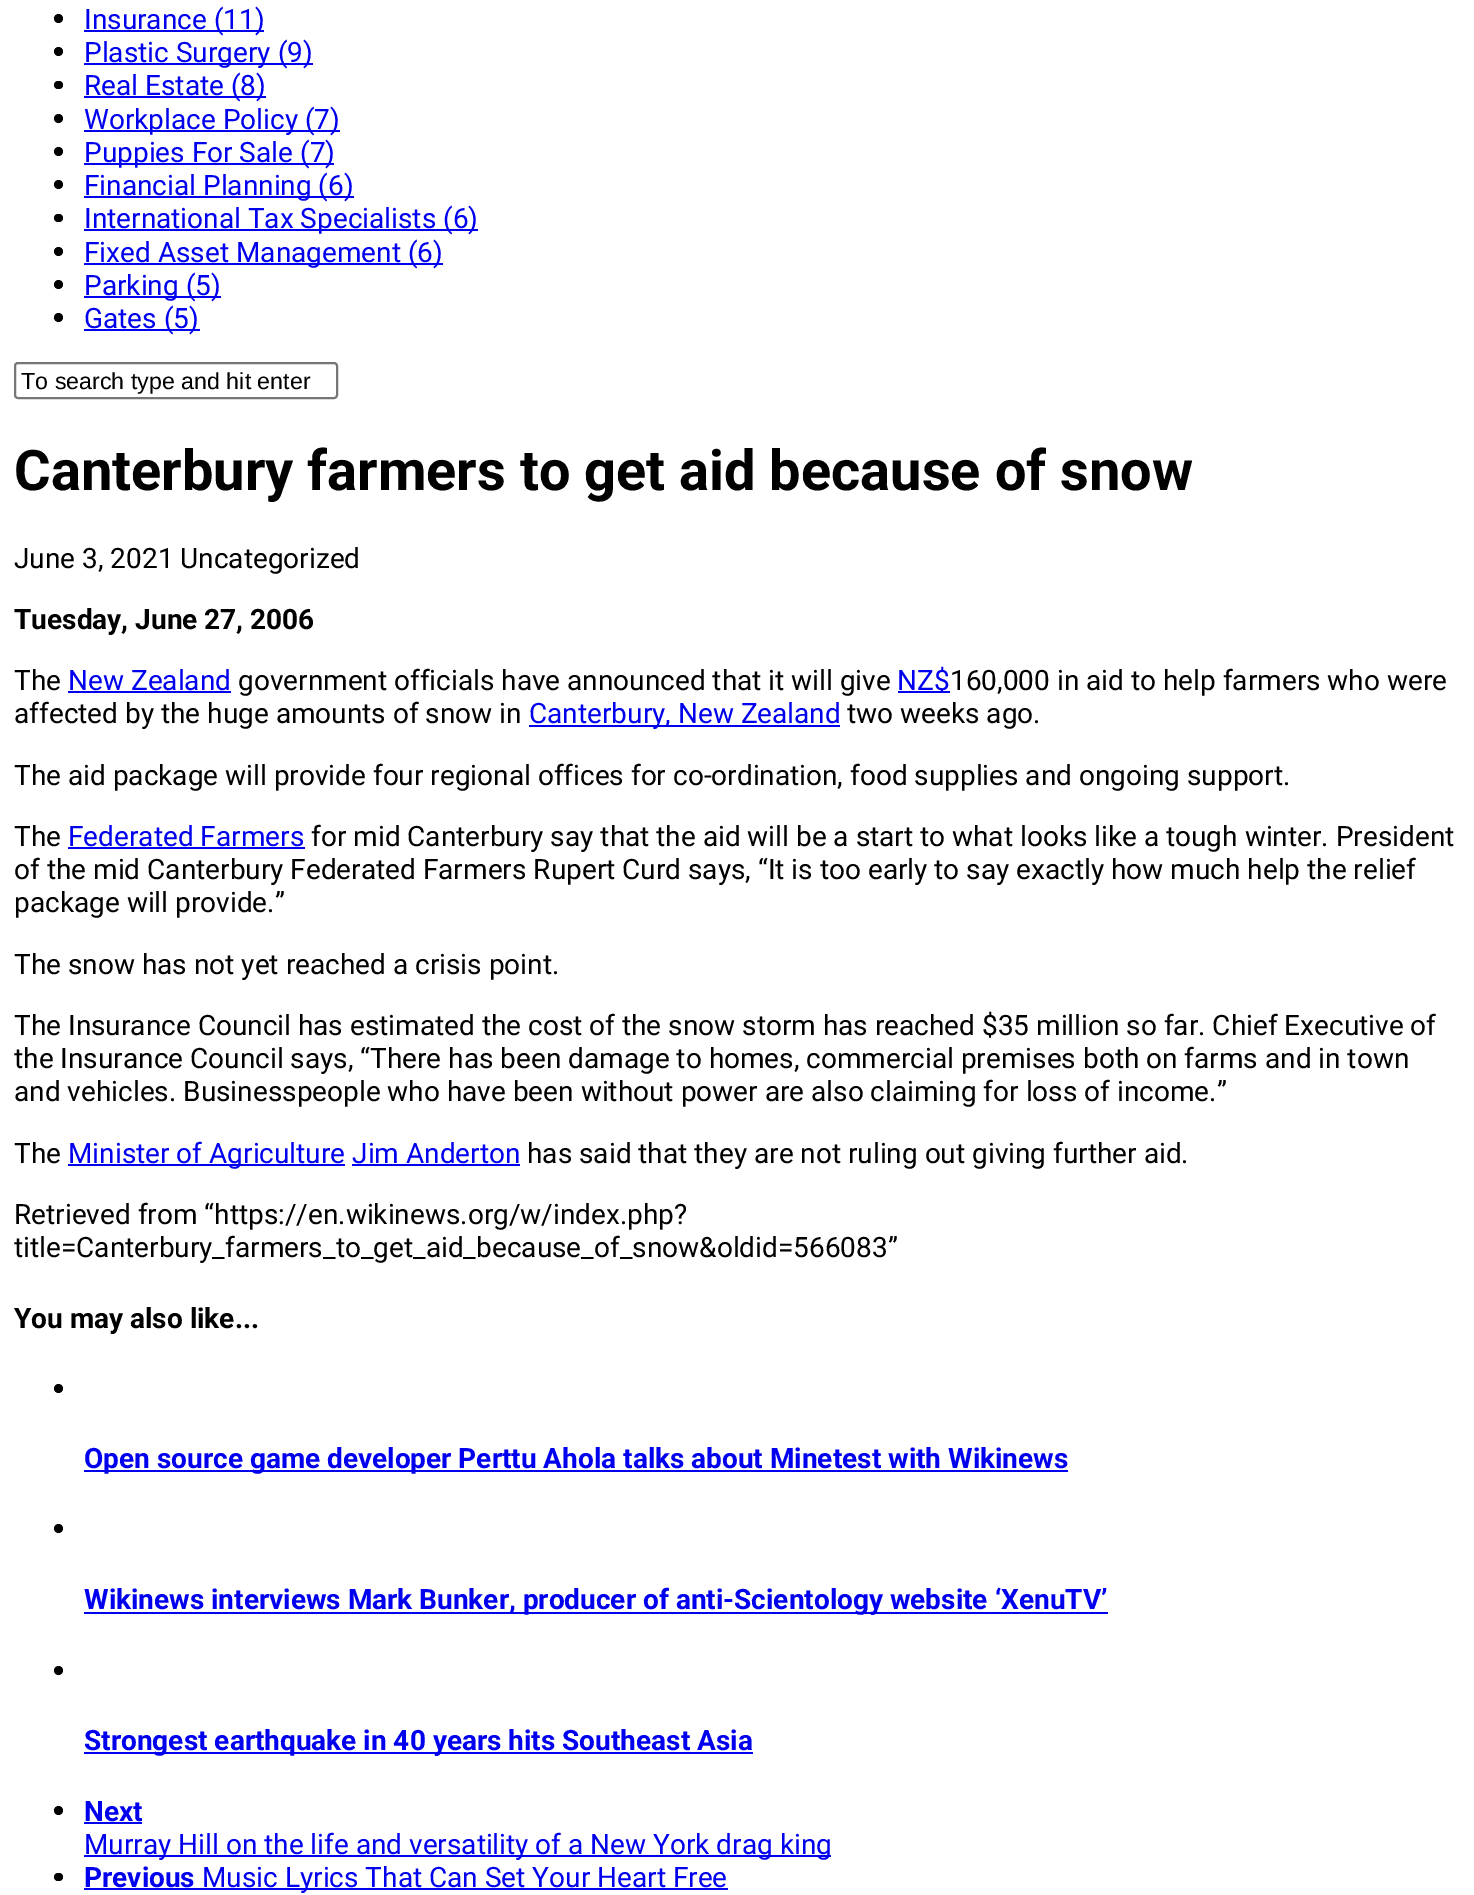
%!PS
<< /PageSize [1474 1895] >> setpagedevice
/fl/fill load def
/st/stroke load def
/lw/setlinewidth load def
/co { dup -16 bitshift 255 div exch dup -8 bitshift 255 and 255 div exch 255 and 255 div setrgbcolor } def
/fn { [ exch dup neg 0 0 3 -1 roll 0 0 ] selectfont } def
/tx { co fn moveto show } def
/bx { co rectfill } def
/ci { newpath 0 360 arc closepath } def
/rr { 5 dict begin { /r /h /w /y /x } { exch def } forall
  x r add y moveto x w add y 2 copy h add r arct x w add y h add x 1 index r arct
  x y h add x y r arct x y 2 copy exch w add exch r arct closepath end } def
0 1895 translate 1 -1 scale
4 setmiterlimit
0 0 1474 1895 16#FFFFFF bx
16#000000 co
58.5 18.5 4.5 ci fl
84 30 180 2 16#0000EE bx
16#000000 co
58.5 51.5 4.5 ci fl
84 63 229 2 16#0000EE bx
16#000000 co
54 81 9 8 4 rr fl
84 96 182 2 16#0000EE bx
16#000000 co
58.5 118.5 4.5 ci fl
84 130 256 2 16#0000EE bx
16#000000 co
58.5 151.5 4.5 ci fl
84 163 250 2 16#0000EE bx
16#000000 co
58.5 184.5 4.5 ci fl
84 196 270 2 16#0000EE bx
16#000000 co
54 214 9 8 4 rr fl
84 229 394 2 16#0000EE bx
16#000000 co
58.5 251.5 4.5 ci fl
84 263 359 2 16#0000EE bx
16#000000 co
58.5 284.5 4.5 ci fl
84 296 137 2 16#0000EE bx
16#000000 co
58.5 317.5 4.5 ci fl
84 329 116 2 16#0000EE bx
16#767676 co
2 lw
15 363 322 35 3 rr st
68 691 163 2 16#0000EE bx
898 691 52 2 16#0000EE bx
529 725 311 2 16#0000EE bx
68 847 237 2 16#0000EE bx
68 1164 277 2 16#0000EE bx
352 1164 168 2 16#0000EE bx
16#000000 co
58.5 1388.5 4.5 ci fl
84 1470 984 2 16#0000EE bx
16#000000 co
58.5 1528.5 4.5 ci fl
84 1612 1024 2 16#0000EE bx
16#000000 co
58.5 1670.5 4.5 ci fl
84 1752 669 2 16#0000EE bx
16#000000 co
58.5 1810.5 4.5 ci fl
84 1822 58 2 16#0000EE bx
84 1855 747 2 16#0000EE bx
16#000000 co
54 1873 9 8 4 rr fl
84 1888 644 2 16#0000EE bx
(Insurance \(11\)) 84 29 /Roboto-Regular 28 16#0000EE tx
(Plastic Surgery \(9\)) 84 62 /Roboto-Regular 28 16#0000EE tx
(Real Estate \(8\)) 84 95 /Roboto-Regular 28 16#0000EE tx
(Workplace Policy \(7\)) 84 129 /Roboto-Regular 28 16#0000EE tx
(Puppies For Sale \(7\)) 84 162 /Roboto-Regular 28 16#0000EE tx
(Financial Planning \(6\)) 84 195 /Roboto-Regular 28 16#0000EE tx
(International Tax Specialists \(6\)) 84 228 /Roboto-Regular 28 16#0000EE tx
(Fixed Asset Management \(6\)) 84 262 /Roboto-Regular 28 16#0000EE tx
(Parking \(5\)) 84 295 /Roboto-Regular 28 16#0000EE tx
(Gates \(5\)) 84 328 /Roboto-Regular 28 16#0000EE tx
(To search type and hit enter) 21 389 /LiberationSans-Regular 23.25 16#000000 tx
(Canterbury farmers to get aid because of snow) 14 490 /Roboto-Bold 56 16#000000 tx
(June 3, 2021 Uncategorized) 14 568 /Roboto-Regular 28 16#000000 tx
(Tuesday, June 27, 2006) 14 629 /Roboto-Bold 28 16#000000 tx
(The) 14 690 /Roboto-Regular 28 16#000000 tx
(New Zealand) 68 690 /Roboto-Regular 28 16#0000EE tx
(government officials have announced that it will give) 238 690 /Roboto-Regular 28 16#000000 tx
(NZ$) 897 690 /Roboto-Regular 28 16#0000EE tx
(160,000 in aid to help farmers who were) 950 690 /Roboto-Regular 28 16#000000 tx
(affected by the huge amounts of snow in) 14 723 /Roboto-Regular 28 16#000000 tx
(Canterbury, New Zealand) 529 723 /Roboto-Regular 28 16#0000EE tx
(two weeks ago.) 847 723 /Roboto-Regular 28 16#000000 tx
(The aid package will provide four regional offices for co-ordination, food supplies and ongoing support.) 14 785 /Roboto-Regular 28 16#000000 tx
(The) 14 846 /Roboto-Regular 28 16#000000 tx
(Federated Farmers) 68 846 /Roboto-Regular 28 16#0000EE tx
(for mid Canterbury say that the aid will be a start to what looks like a tough winter. President) 311 846 /Roboto-Regular 28 16#000000 tx
(of the mid Canterbury Federated Farmers Rupert Curd says, “It is too early to say exactly how much help the relief) 14 879 /Roboto-Regular 28 16#000000 tx
(package will provide.”) 14 912 /Roboto-Regular 28 16#000000 tx
(The snow has not yet reached a crisis point.) 14 974 /Roboto-Regular 28 16#000000 tx
(The Insurance Council has estimated the cost of the snow storm has reached $35 million so far. Chief Executive of) 14 1035 /Roboto-Regular 28 16#000000 tx
(the Insurance Council says, “There has been damage to homes, commercial premises both on farms and in town) 14 1068 /Roboto-Regular 28 16#000000 tx
(and vehicles. Businesspeople who have been without power are also claiming for loss of income.”) 14 1101 /Roboto-Regular 28 16#000000 tx
(The) 14 1163 /Roboto-Regular 28 16#000000 tx
(Minister of Agriculture Jim Anderton) 68 1163 /Roboto-Regular 28 16#0000EE tx
(has said that they are not ruling out giving further aid.) 527 1163 /Roboto-Regular 28 16#000000 tx
(Retrieved from “https://en.wikinews.org/w/index.php?) 14 1224 /Roboto-Regular 28 16#000000 tx
(title=Canterbury_farmers_to_get_aid_because_of_snow&oldid=566083”) 14 1257 /Roboto-Regular 28 16#000000 tx
(You may also like...) 14 1328 /Roboto-Bold 28 16#000000 tx
(Open source game developer Perttu Ahola talks about Minetest with Wikinews) 84 1468 /Roboto-Bold 28 16#0000EE tx
(Wikinews interviews Mark Bunker, producer of anti-Scientology website ‘XenuTV’) 84 1609 /Roboto-Bold 28 16#0000EE tx
(Strongest earthquake in 40 years hits Southeast Asia) 84 1750 /Roboto-Bold 28 16#0000EE tx
(Next) 84 1821 /Roboto-Bold 28 16#0000EE tx
(Murray Hill on the life and versatility of a New York drag king) 84 1854 /Roboto-Regular 28 16#0000EE tx
(Previous) 84 1887 /Roboto-Bold 28 16#0000EE tx
(Music Lyrics That Can Set Your Heart Free) 202 1887 /Roboto-Regular 28 16#0000EE tx
showpage
